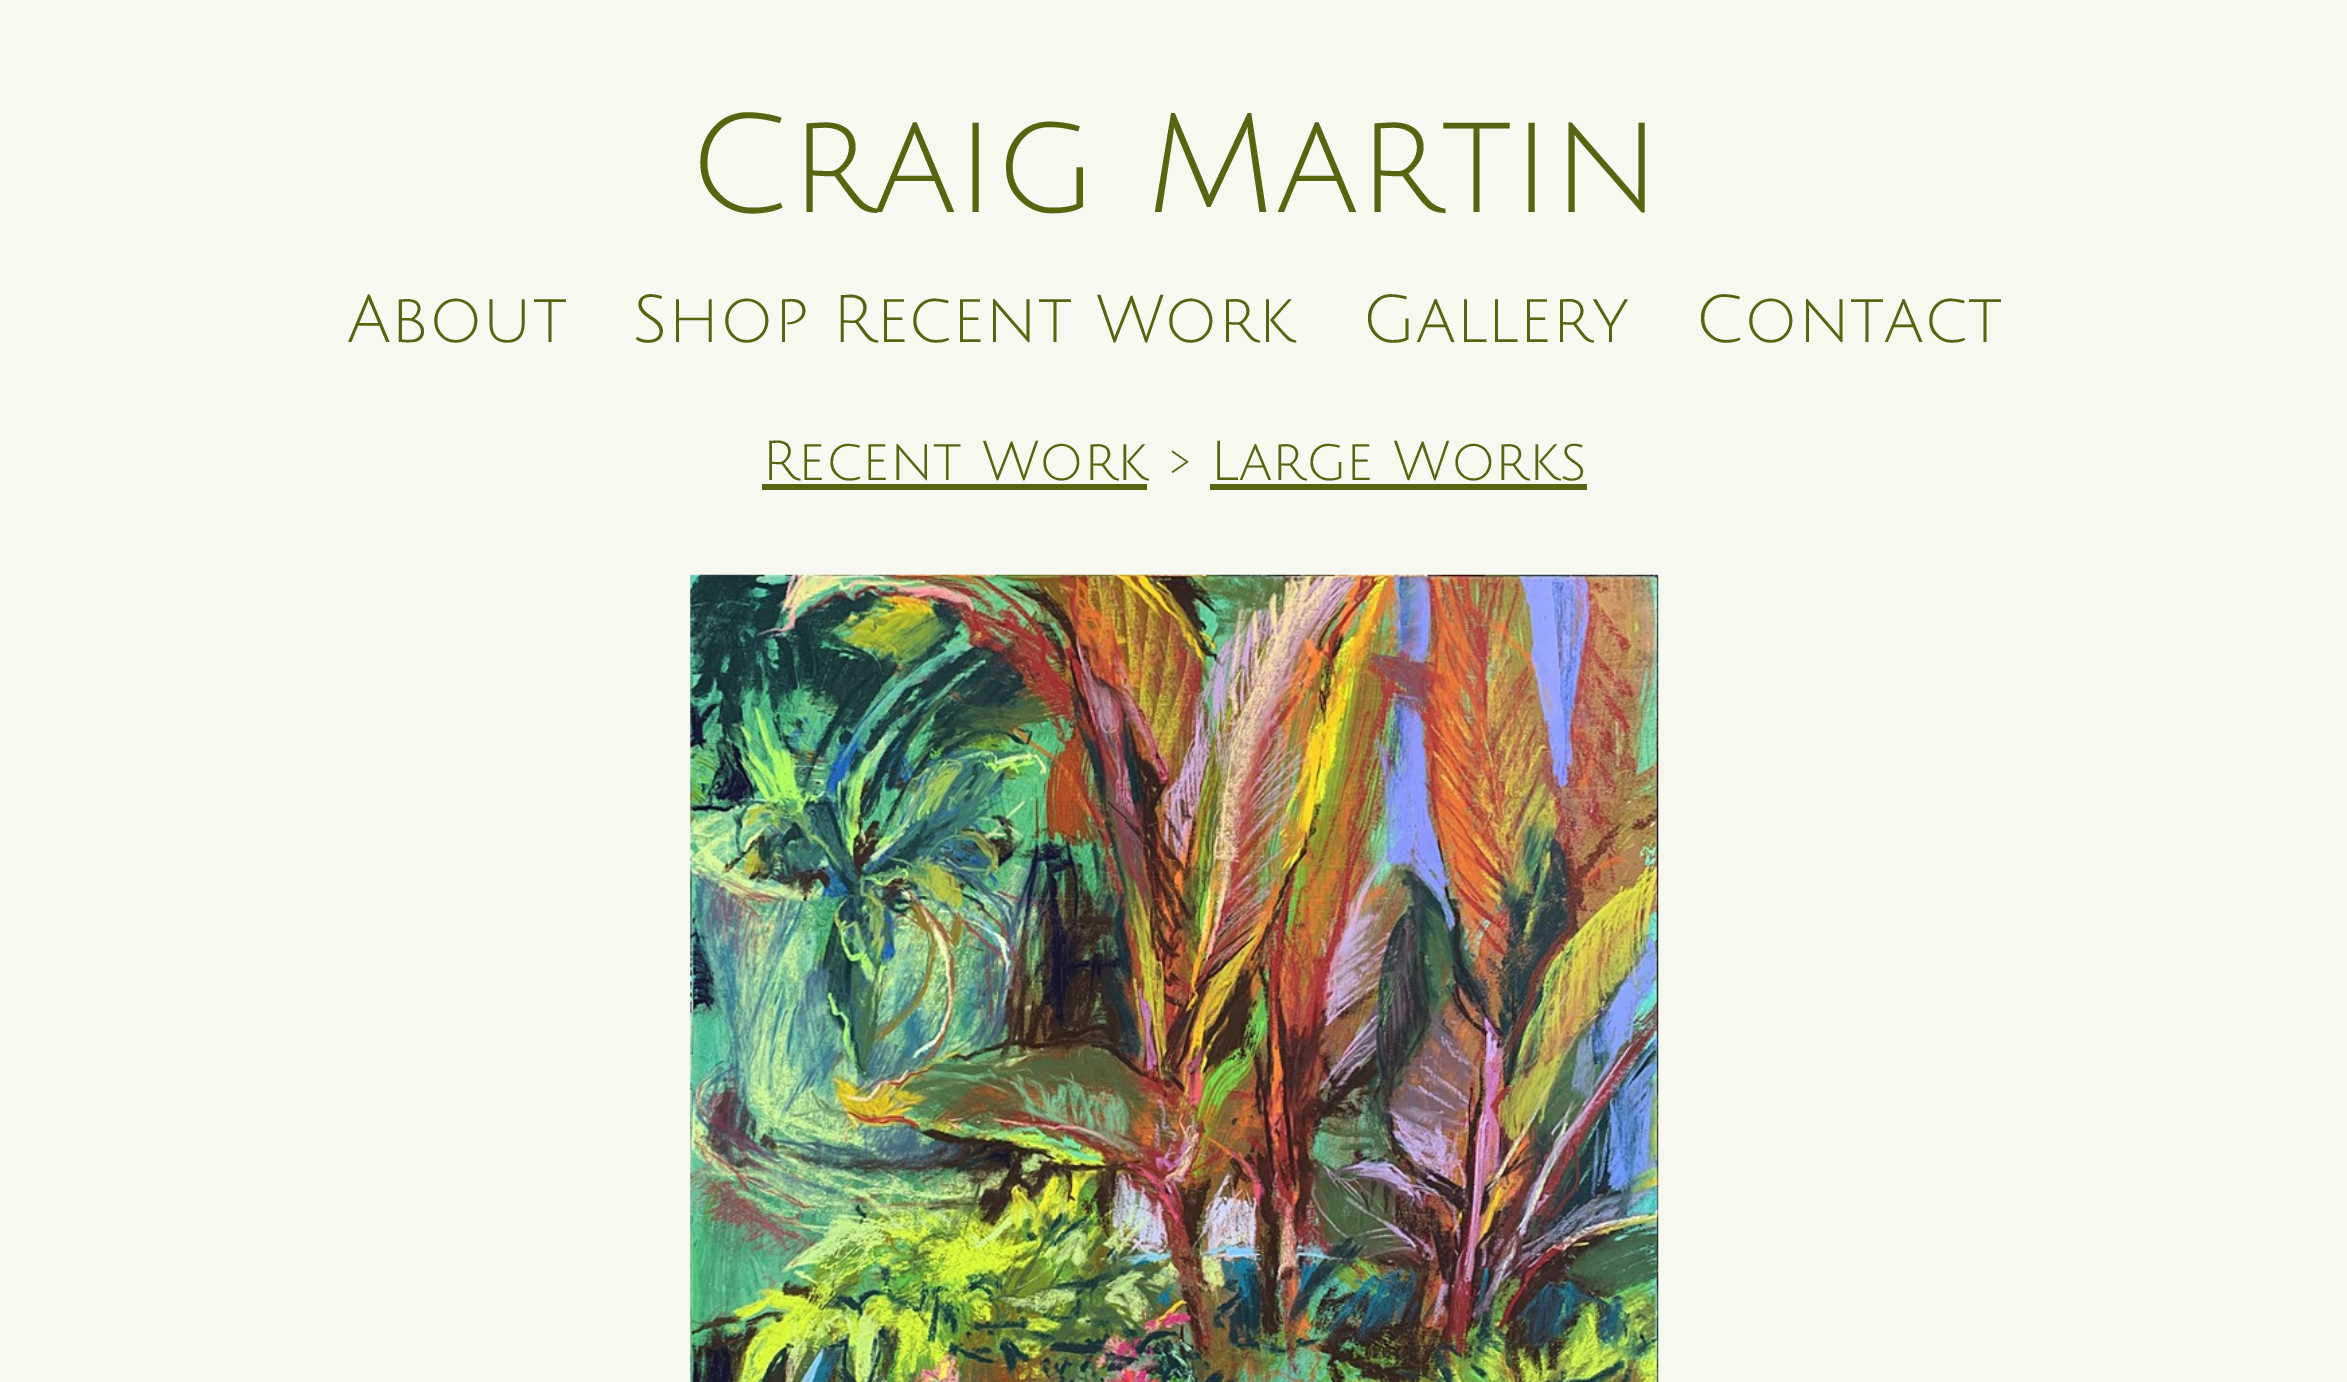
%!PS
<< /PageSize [2347 1382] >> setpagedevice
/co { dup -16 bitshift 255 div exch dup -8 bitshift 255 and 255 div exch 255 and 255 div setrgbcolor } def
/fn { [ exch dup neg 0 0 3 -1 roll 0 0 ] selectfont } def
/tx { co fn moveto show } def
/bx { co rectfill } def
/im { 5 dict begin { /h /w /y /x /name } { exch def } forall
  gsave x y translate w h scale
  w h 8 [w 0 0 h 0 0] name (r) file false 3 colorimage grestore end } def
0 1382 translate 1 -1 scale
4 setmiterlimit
0 0 2347 1382 16#F7F9F0 bx
762 484 385 6 16#556510 bx
1210 484 377 6 16#556510 bx
(media/1.raw) 690 574 969 808 im
(Craig Martin) 688 212 /JuliusSansOne-Regular 137.5 16#556510 tx
(About) 347 342 /JuliusSansOne-Regular 66 16#556510 tx
(Shop Recent Work) 632 342 /JuliusSansOne-Regular 66 16#556510 tx
(Gallery) 1362 342 /JuliusSansOne-Regular 66 16#556510 tx
(Contact) 1695 342 /JuliusSansOne-Regular 66 16#556510 tx
(Recent Work > Large Works) 762 480 /JuliusSansOne-Regular 55 16#556510 tx
showpage
